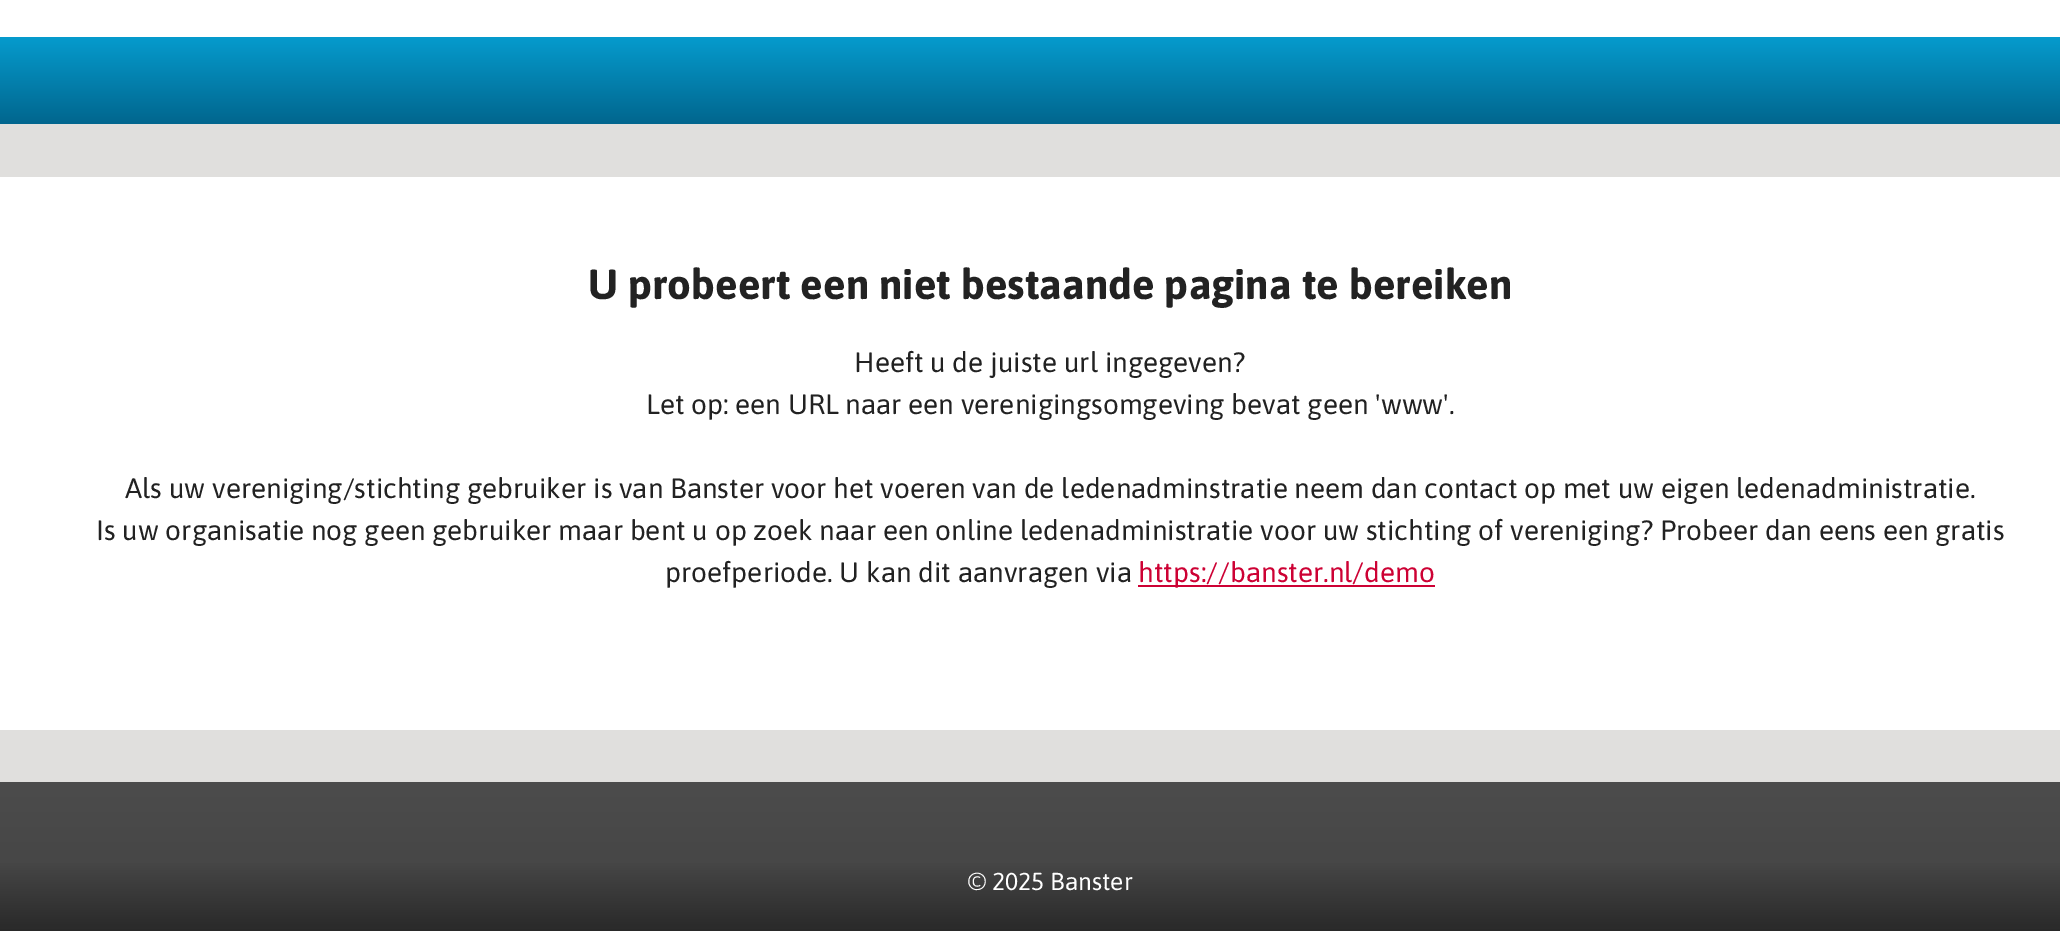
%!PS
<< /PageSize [2060 931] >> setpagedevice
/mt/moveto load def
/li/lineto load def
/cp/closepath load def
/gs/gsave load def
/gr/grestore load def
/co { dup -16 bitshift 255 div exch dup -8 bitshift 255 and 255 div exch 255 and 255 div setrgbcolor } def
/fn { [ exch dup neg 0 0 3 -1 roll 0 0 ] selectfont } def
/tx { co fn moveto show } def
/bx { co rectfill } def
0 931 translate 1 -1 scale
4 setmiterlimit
0 0 2060 931 16#E0DFDD bx
0 0 2060 37 16#FFFFFF bx
gs 0 37 mt 2060 37 li 2060 124 li 0 124 li cp clip newpath
<< /ShadingType 2 /ColorSpace /DeviceRGB /Coords [1047 37 1047 124] /Extend [true true] /Function << /FunctionType 2 /Domain [0 1] /C0 [.024 .608 .804] /C1 [.004 .4 .557] /N 1 >> >> shfill gr
0 177 2060 553 16#FFFFFF bx
1138 585 297 2 16#CD0134 bx
gs 0 782 mt 2060 782 li 2060 931 li 0 931 li cp clip newpath
<< /ShadingType 2 /ColorSpace /DeviceRGB /Coords [1031 782 1031 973] /Extend [true true] /Function << /FunctionType 3 /Domain [0 1] /Functions [<< /FunctionType 2 /Domain [0 1] /C0 [.298 .298 .298] /C1 [.278 .278 .278] /N 1 >> << /FunctionType 2 /Domain [0 1] /C0 [.278 .278 .278] /C1 [.169 .169 .169] /N 1 >> << /FunctionType 2 /Domain [0 1] /C0 [.169 .169 .169] /C1 [.078 .078 .078] /N 1 >> << /FunctionType 2 /Domain [0 1] /C0 [.078 .078 .078] /C1 [.075 .075 .075] /N 1 >>] /Bounds [.42 .76 .99] /Encode [0 1 0 1 0 1 0 1] >> >> shfill gr
(U probeert een niet bestaande pagina te bereiken) 588 299 /Asap-Bold 42 16#222222 tx
(Heeft u de juiste url ingegeven?) 854 372 /Asap-Regular 28 16#222222 tx
(Let op: een URL naar een verenigingsomgeving bevat geen 'www'.) 646 414 /Asap-Regular 28 16#222222 tx
(Als uw vereniging/stichting gebruiker is van Banster voor het voeren van de ledenadminstratie neem dan contact op met uw eigen ledenadministratie.) 125 498 /Asap-Regular 28 16#222222 tx
(Is uw organisatie nog geen gebruiker maar bent u op zoek naar een online ledenadministratie voor uw stichting of vereniging? Probeer dan eens een gratis) 96 540 /Asap-Regular 28 16#222222 tx
(proefperiode. U kan dit aanvragen via) 665 582 /Asap-Regular 28 16#222222 tx
(https://banster.nl/demo) 1138 582 /Asap-Regular 28 16#CD0134 tx
(© 2025 Banster) 968 890 /Asap-Regular 24.5 16#FFFFFF tx
showpage
